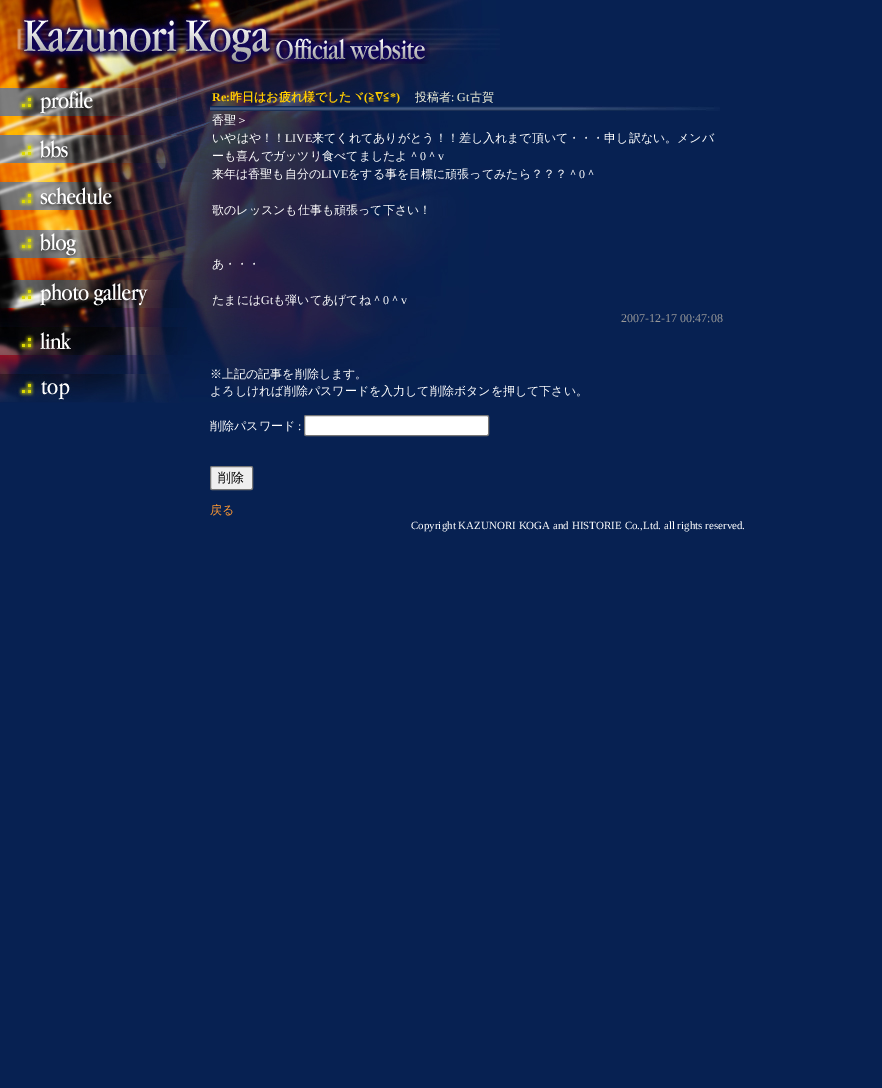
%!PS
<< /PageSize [882 1088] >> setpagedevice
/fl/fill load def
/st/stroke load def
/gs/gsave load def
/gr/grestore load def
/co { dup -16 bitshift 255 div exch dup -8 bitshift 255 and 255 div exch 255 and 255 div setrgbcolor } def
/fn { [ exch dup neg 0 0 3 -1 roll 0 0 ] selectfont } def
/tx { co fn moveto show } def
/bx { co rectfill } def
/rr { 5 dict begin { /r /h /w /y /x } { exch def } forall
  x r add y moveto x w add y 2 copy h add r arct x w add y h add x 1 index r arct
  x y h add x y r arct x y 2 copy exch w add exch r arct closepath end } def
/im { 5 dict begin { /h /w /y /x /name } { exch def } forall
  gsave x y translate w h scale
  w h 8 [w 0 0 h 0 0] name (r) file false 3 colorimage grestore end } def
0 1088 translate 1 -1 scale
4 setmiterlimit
0 0 882 1088 16#072152 bx
(media/1.raw) 0 0 500 403 im
(media/2.raw) 20 14 410 50 im
(media/3.raw) 0 88 184 28 im
(media/4.raw) 0 135 200 28 im
(media/5.raw) 0 182 197 28 im
(media/6.raw) 0 230 200 28 im
(media/7.raw) 0 280 193 28 im
(media/8.raw) 0 327 187 28 im
(media/9.raw) 0 374 169 28 im
(media/10.raw) 210 106 510 5 im
16#FFFFFF co
304.5 415.5 184 20 1.5 rr gs fl gr
16#767676 co
st
16#EFEFEF co
210.5 466.5 42 23 1.5 rr gs fl gr
16#767676 co
st
(Re:) 212 101 /LiberationSerif-Bold 12 16#FFCC00 tx
(昨日はお疲れ様でしたヾ) 230 101 /WenQuanYiZenHei-Bold 12 16#FFCC00 tx
(\() 364 101 /LiberationSerif-Bold 12 16#FFCC00 tx
(≧∇≦) 368 101 /WenQuanYiZenHei-Bold 12 16#FFCC00 tx
(*\)) 390 101 /LiberationSerif-Bold 12 16#FFCC00 tx
(投稿者) 415 101 /WenQuanYiZenHei-Medium 12 16#F7F7DD tx
(: Gt) 451 101 /LiberationSerif-Regular 12 16#F7F7DD tx
(古賀) 470 101 /WenQuanYiZenHei-Medium 12 16#F7F7DD tx
(香聖＞) 212 124 /WenQuanYiZenHei-Medium 12 16#FFFFFF tx
(いやはや！！) 212 142 /WenQuanYiZenHei-Medium 12 16#FFFFFF tx
(LIVE) 285 142 /LiberationSerif-Regular 12 16#FFFFFF tx
(来てくれてありがとう！！差し入れまで頂いて・・・申し訳ない。メンバ) 312 142 /WenQuanYiZenHei-Medium 12 16#FFFFFF tx
(ーも喜んでガッツリ食べてましたよ＾) 212 160 /WenQuanYiZenHei-Medium 12 16#FFFFFF tx
(0) 420 160 /LiberationSerif-Regular 12 16#FFFFFF tx
(＾) 426 160 /WenQuanYiZenHei-Medium 12 16#FFFFFF tx
(v) 438 160 /LiberationSerif-Regular 12 16#FFFFFF tx
(来年は香聖も自分の) 212 178 /WenQuanYiZenHei-Medium 12 16#FFFFFF tx
(LIVE) 321 178 /LiberationSerif-Regular 12 16#FFFFFF tx
(をする事を目標に頑張ってみたら？？？＾) 348 178 /WenQuanYiZenHei-Medium 12 16#FFFFFF tx
(0) 579 178 /LiberationSerif-Regular 12 16#FFFFFF tx
(＾) 585 178 /WenQuanYiZenHei-Medium 12 16#FFFFFF tx
(歌のレッスンも仕事も頑張って下さい！) 212 214 /WenQuanYiZenHei-Medium 12 16#FFFFFF tx
(あ・・・) 212 268 /WenQuanYiZenHei-Medium 12 16#FFFFFF tx
(たまには) 212 304 /WenQuanYiZenHei-Medium 12 16#FFFFFF tx
(Gt) 261 304 /LiberationSerif-Regular 12 16#FFFFFF tx
(も弾いてあげてね＾) 273 304 /WenQuanYiZenHei-Medium 12 16#FFFFFF tx
(0) 383 304 /LiberationSerif-Regular 12 16#FFFFFF tx
(＾) 389 304 /WenQuanYiZenHei-Medium 12 16#FFFFFF tx
(v) 401 304 /LiberationSerif-Regular 12 16#FFFFFF tx
(2007-12-17 00:47:08) 621 322 /LiberationSerif-Regular 12 16#999999 tx
(※上記の記事を削除します。) 210 378 /WenQuanYiZenHei-Medium 12 16#FFFFFF tx
(よろしければ削除パスワードを入力して削除ボタンを押して下さい。) 210 395 /WenQuanYiZenHei-Medium 12 16#FFFFFF tx
(削除パスワード) 210 430 /WenQuanYiZenHei-Medium 12 16#FFFFFF tx
(:) 298 430 /LiberationSerif-Regular 12 16#FFFFFF tx
(削除) 218 482 /WenQuanYiZenHei-Medium 13 16#000000 tx
(戻る) 210 514 /WenQuanYiZenHei-Medium 12 16#FF9933 tx
(Copyright KAZUNORI KOGA and HISTORIE Co.,Ltd. all rights reserved.) 411 529 /LiberationSerif-Regular 11 16#FFFFFF tx
showpage
